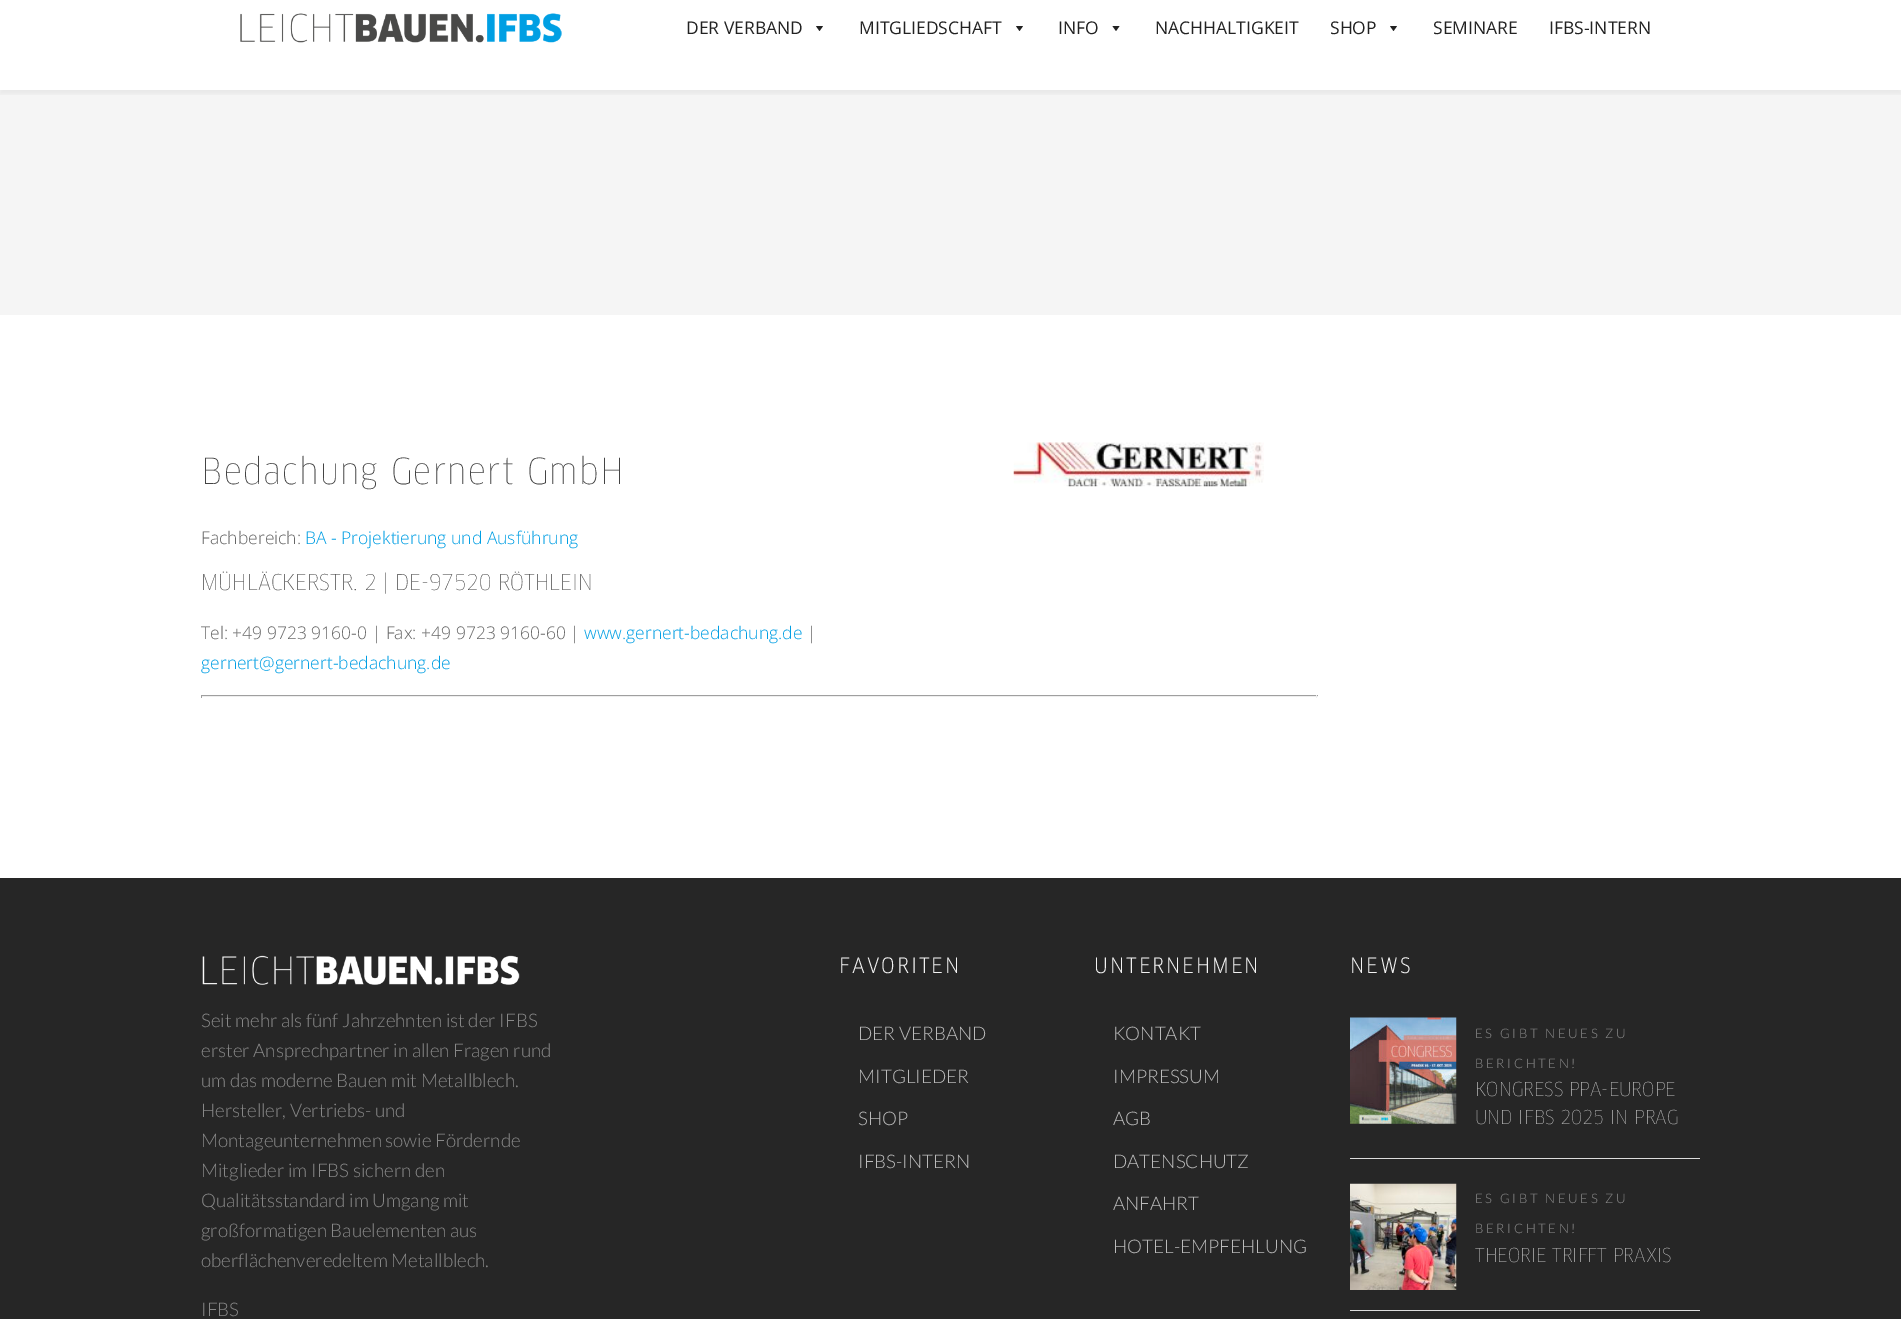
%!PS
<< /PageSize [1901 1319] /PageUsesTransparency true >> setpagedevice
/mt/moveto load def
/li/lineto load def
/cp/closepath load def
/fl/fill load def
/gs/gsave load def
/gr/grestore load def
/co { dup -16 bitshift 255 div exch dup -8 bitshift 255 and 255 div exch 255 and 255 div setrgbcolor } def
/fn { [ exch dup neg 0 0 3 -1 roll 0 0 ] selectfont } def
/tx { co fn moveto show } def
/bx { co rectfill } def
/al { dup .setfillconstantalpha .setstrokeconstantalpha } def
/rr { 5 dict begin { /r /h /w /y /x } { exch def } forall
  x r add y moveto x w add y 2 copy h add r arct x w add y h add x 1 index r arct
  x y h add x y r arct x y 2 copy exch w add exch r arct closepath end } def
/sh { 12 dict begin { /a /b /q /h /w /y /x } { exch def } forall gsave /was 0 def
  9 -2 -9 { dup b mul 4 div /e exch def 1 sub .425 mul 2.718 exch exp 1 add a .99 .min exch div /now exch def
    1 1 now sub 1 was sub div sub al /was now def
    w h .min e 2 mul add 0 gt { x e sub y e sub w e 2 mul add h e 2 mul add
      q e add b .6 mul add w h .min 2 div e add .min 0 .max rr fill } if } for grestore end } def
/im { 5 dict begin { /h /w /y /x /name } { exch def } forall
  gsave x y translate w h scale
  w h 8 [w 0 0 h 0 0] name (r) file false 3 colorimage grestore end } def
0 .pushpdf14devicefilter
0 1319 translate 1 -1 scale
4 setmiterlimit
0 0 1901 1319 16#FFFFFF bx
0 90 1901 225 16#F5F5F5 bx
gs
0 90 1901 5 rectclip
16#000000 co
0 -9 1901 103 0 3 .05 sh
gr
(media/1.raw) 240 13 322 30 im
16#222222 co
823 26 mt 819.5 31 li 816 26 li cp fl
1023 26 mt 1019.5 31 li 1016 26 li cp fl
1119.5 26 mt 1116 31 li 1112.5 26 li cp fl
1397 26 mt 1393.5 31 li 1390 26 li cp fl
(media/2.raw) 1013 442 251 45 im
201 695 1117 1 16#9F9F9F bx
1316 695 1 3 16#EEEEEE bx
201 696 1117 1 16#EEEEEE bx
201 695 1 3 16#9F9F9F bx
0 878 1901 441 16#262626 bx
(media/3.raw) 202 955 318 30 im
1350 1158 350 1 16#DDDDDD bx
(media/4.raw) 1350 1017 107 107 im
1350 1310 350 1 16#DDDDDD bx
(media/5.raw) 1350 1183 107 107 im
(DER VERBAND) 686 34 /OpenSans-Regular 17.5 16#222222 tx
(MITGLIEDSCHAFT) 859 34 /OpenSans-Regular 17.5 16#222222 tx
(INFO) 1058 34 /OpenSans-Regular 17.5 16#222222 tx
(NACHHALTIGKEIT) 1155 34 /OpenSans-Regular 17.5 16#222222 tx
(SHOP) 1330 34 /OpenSans-Regular 17.5 16#222222 tx
(SEMINARE) 1433 34 /OpenSans-Regular 17.5 16#222222 tx
(IFBS-INTERN) 1549 34 /OpenSans-Regular 17.5 16#222222 tx
/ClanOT-Thin 35 fn
16#444444 co
201 484 mt 1.25 0 (Bedachung Gernert GmbH) ashow
(Fachbereich:) 201 544 /OpenSans-Light 17.5 16#666666 tx
(BA - Projektierung und Ausführung) 305 544 /OpenSans-Light 17.5 16#009EE3 tx
(MÜHLÄCKERSTR. 2 | DE-97520 RÖTHLEIN) 201 590 /ClanOT-Thin 21.25 16#444444 tx
(Tel: +49 9723 9160-0 | Fax: +49 9723 9160-60 |) 201 639 /OpenSans-Light 17.5 16#666666 tx
(www.gernert-bedachung.de) 584 639 /OpenSans-Light 17.5 16#009EE3 tx
(|) 807 639 /OpenSans-Light 17.5 16#666666 tx
(gernert@gernert-bedachung.de) 201 669 /OpenSans-Light 17.5 16#009EE3 tx
(Seit mehr als fünf Jahrzehnten ist der IFBS) 201 1027 /Lato-Light 18.75 16#888888 tx
(erster Ansprechpartner in allen Fragen rund) 201 1057 /Lato-Light 18.75 16#888888 tx
(um das moderne Bauen mit Metallblech.) 201 1087 /Lato-Light 18.75 16#888888 tx
(Hersteller, Vertriebs- und) 201 1117 /Lato-Light 18.75 16#888888 tx
(Montageunternehmen sowie Fördernde) 201 1147 /Lato-Light 18.75 16#888888 tx
(Mitglieder im IFBS sichern den) 201 1177 /Lato-Light 18.75 16#888888 tx
(Qualitätsstandard im Umgang mit) 201 1207 /Lato-Light 18.75 16#888888 tx
(großformatigen Bauelementen aus) 201 1237 /Lato-Light 18.75 16#888888 tx
(oberflächenveredeltem Metallblech.) 201 1267 /Lato-Light 18.75 16#888888 tx
(IFBS) 201 1316 /Lato-Light 18.75 16#888888 tx
/ClanOT-Bold 20 fn
16#F2F2F2 co
839 973 mt 2.5 0 (FAVORITEN) ashow
(DER VERBAND) 858 1040 /Lato-Light 18.75 16#BBBBBB tx
(MITGLIEDER) 858 1083 /Lato-Light 18.75 16#BBBBBB tx
(SHOP) 858 1125 /Lato-Light 18.75 16#BBBBBB tx
(IFBS-INTERN) 858 1168 /Lato-Light 18.75 16#BBBBBB tx
/ClanOT-Bold 20 fn
16#F2F2F2 co
1094 973 mt 2.5 0 (UNTERNEHMEN) ashow
(KONTAKT) 1113 1040 /Lato-Light 18.75 16#BBBBBB tx
(IMPRESSUM) 1113 1083 /Lato-Light 18.75 16#BBBBBB tx
(AGB) 1113 1125 /Lato-Light 18.75 16#BBBBBB tx
(DATENSCHUTZ) 1113 1168 /Lato-Light 18.75 16#BBBBBB tx
(ANFAHRT) 1113 1210 /Lato-Light 18.75 16#BBBBBB tx
(HOTEL-EMPFEHLUNG) 1113 1253 /Lato-Light 18.75 16#BBBBBB tx
/ClanOT-Bold 20 fn
16#F2F2F2 co
1350 973 mt 2.5 0 (NEWS) ashow
/Lato-Light 13.1 fn
16#8E8E8E co
1475 1038 mt 2.6 0 (ES GIBT NEUES ZU) ashow
1475 1068 mt 2.6 0 (BERICHTEN!) ashow
(KONGRESS PPA-EUROPE) 1475 1096 /ClanOT-Thin 18.75 16#BBBBBB tx
(UND IFBS 2025 IN PRAG) 1475 1124 /ClanOT-Thin 18.75 16#BBBBBB tx
/Lato-Light 13.1 fn
16#8E8E8E co
1475 1203 mt 2.6 0 (ES GIBT NEUES ZU) ashow
1475 1233 mt 2.6 0 (BERICHTEN!) ashow
(THEORIE TRIFFT PRAXIS) 1475 1262 /ClanOT-Thin 18.75 16#BBBBBB tx
.poppdf14devicefilter showpage
